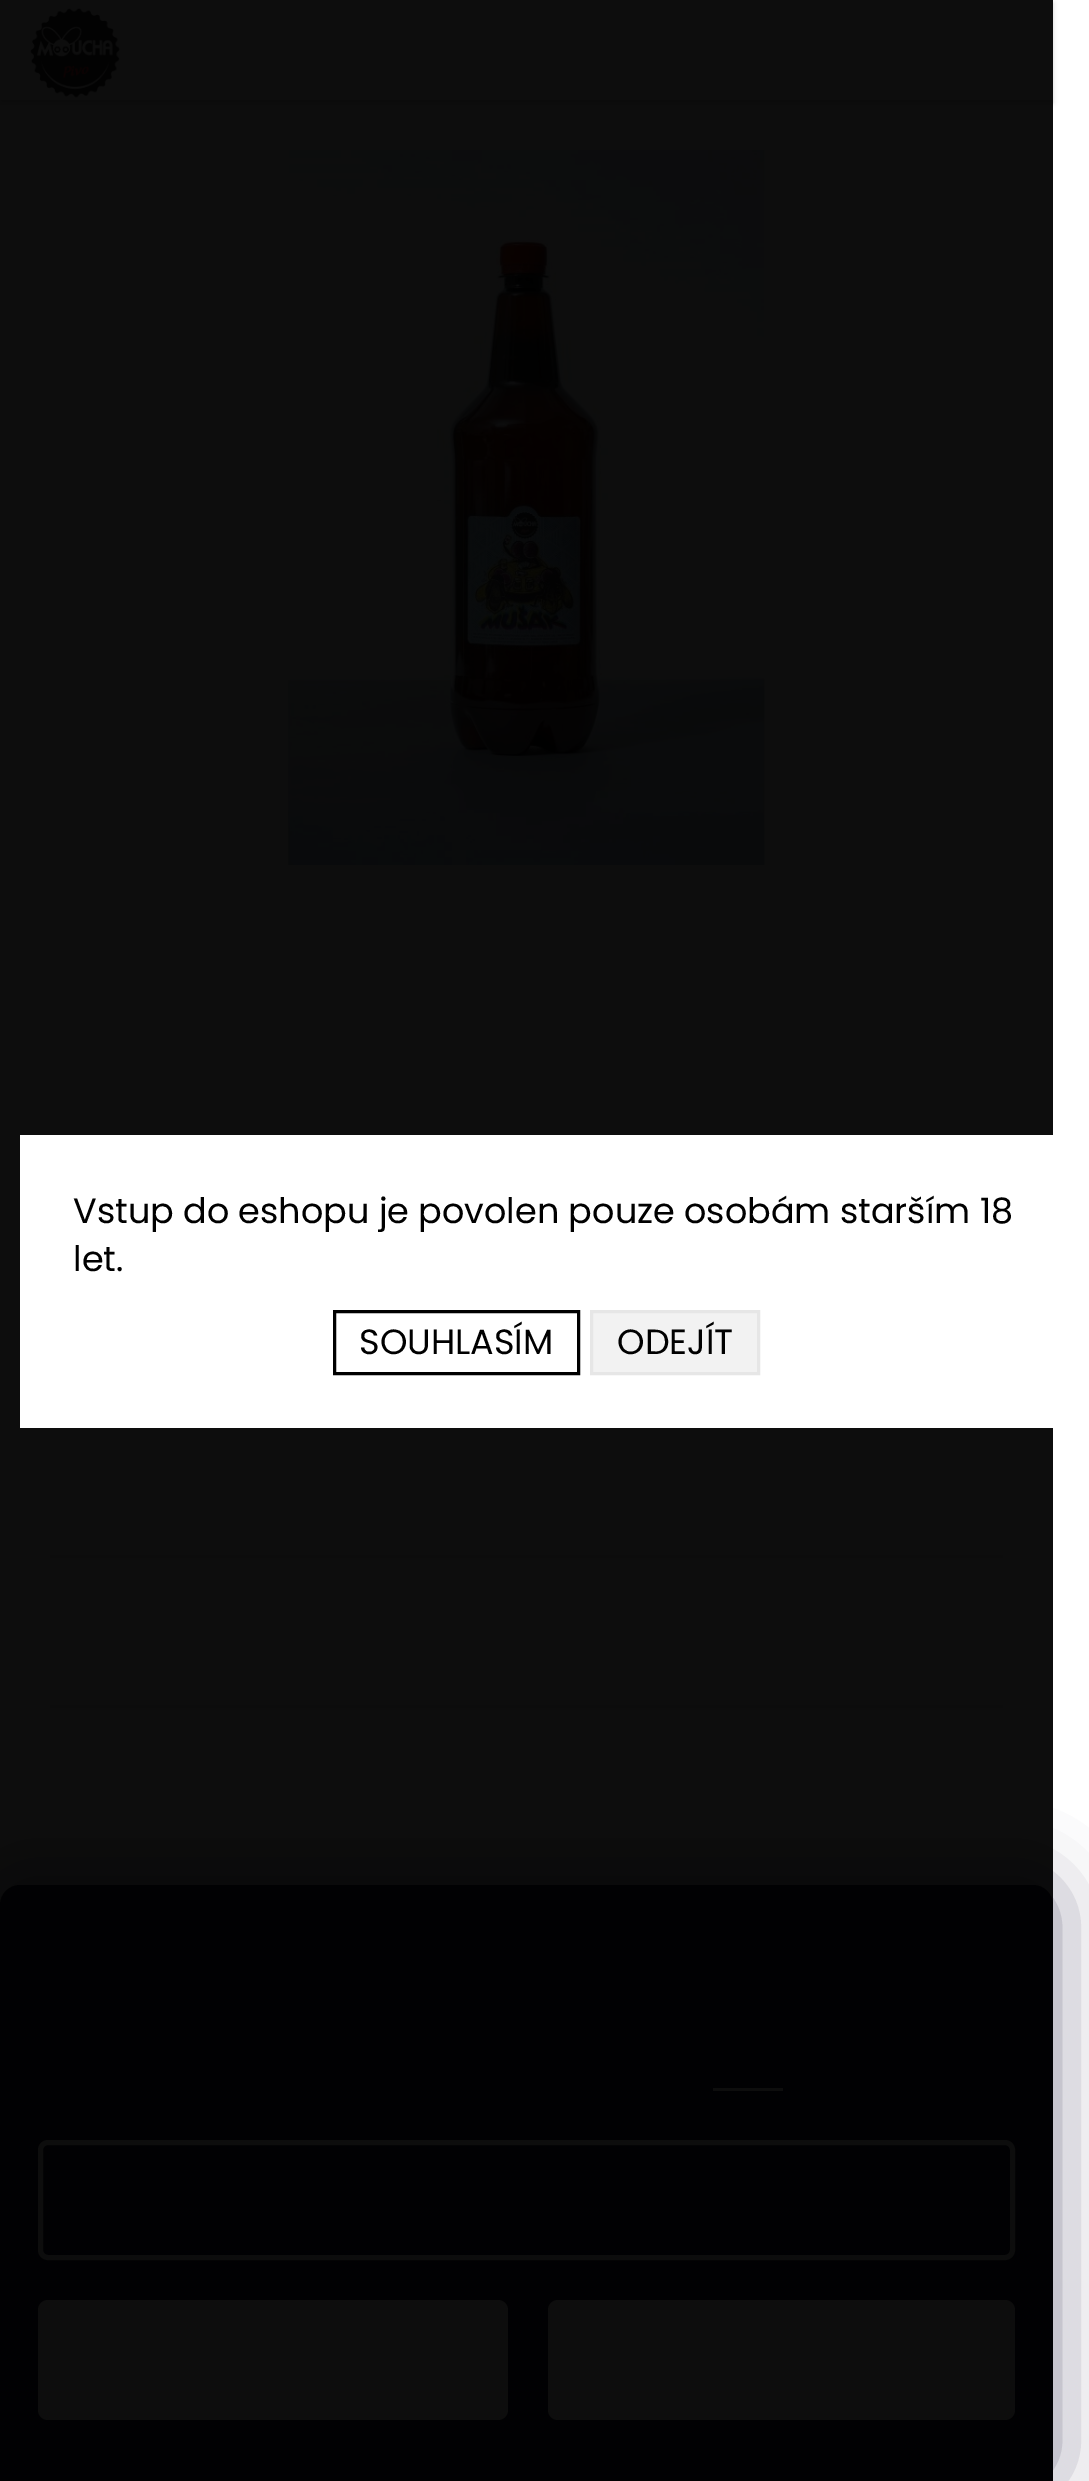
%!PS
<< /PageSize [1089 2481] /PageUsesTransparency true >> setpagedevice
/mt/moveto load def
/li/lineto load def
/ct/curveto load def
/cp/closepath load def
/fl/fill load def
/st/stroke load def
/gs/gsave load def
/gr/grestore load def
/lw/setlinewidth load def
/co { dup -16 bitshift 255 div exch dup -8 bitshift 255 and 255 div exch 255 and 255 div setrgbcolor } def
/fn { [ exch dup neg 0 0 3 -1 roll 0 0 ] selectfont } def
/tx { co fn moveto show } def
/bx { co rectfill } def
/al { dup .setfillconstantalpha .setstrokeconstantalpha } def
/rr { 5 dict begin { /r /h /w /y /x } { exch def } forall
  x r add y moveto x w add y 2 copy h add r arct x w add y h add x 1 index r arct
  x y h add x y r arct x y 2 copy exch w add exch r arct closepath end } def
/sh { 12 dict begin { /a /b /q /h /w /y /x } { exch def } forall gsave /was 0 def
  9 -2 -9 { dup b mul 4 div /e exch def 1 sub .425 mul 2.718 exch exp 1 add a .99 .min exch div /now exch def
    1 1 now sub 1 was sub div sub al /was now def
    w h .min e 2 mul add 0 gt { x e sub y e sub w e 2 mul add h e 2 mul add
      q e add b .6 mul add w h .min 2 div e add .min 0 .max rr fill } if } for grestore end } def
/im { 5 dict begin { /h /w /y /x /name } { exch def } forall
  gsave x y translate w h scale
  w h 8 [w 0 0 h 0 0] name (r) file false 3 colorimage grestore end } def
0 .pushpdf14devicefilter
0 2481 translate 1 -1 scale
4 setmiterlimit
0 0 1089 2481 16#FFFFFF bx
16#000000 co
0 3 1053 100 0 2.5 .16 sh
0 0 1053 100 16#FFFFFF bx
(media/1.raw) 30 8 90 90 im
(media/2.raw) 287 150 478 715 im
50 1555 953 3 16#E7E7E7 bx
50 1705 953 3 16#E7E7E7 bx
16#1B1939 co
0 1885 1053 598 20 37.5 .5 sh
16#1A1937 co
20 1885 mt 1033 1885 li 1044 1885 1053 1894 1053 1905 ct 1053 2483 li 0 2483 li 0 1905 li 0 1894 9 1885 20 1885 ct cp fl
713 2088 70 3 16#F8FAFB bx
5 lw
40.5 2142.5 972 115 7.5 rr st
38 2300 470 120 10 rr fl
548 2300 467 120 10 rr fl
0.95 al
0 0 1053 2481 16#000000 bx
1 al
20 1135 1033 293 16#FFFFFF bx
16#000000 co
3 lw
334.5 1311.5 244 62 rectstroke
16#F2F2F2 co
591.5 1311.5 mt 758.5 1311.5 li 758.5 1373.5 li 591.5 1373.5 li cp gs fl gr
16#E6E6E6 co
st
(Vstup do eshopu je povolen pouze osobám starším 18) 73 1223 /Poppins-Regular 35 16#000000 tx
(let.) 73 1271 /Poppins-Regular 35 16#000000 tx
(SOUHLASÍM) 359 1354 /Poppins-Regular 35 16#000000 tx
(ODEJÍT) 617 1354 /Poppins-Regular 35 16#000000 tx
.poppdf14devicefilter showpage
